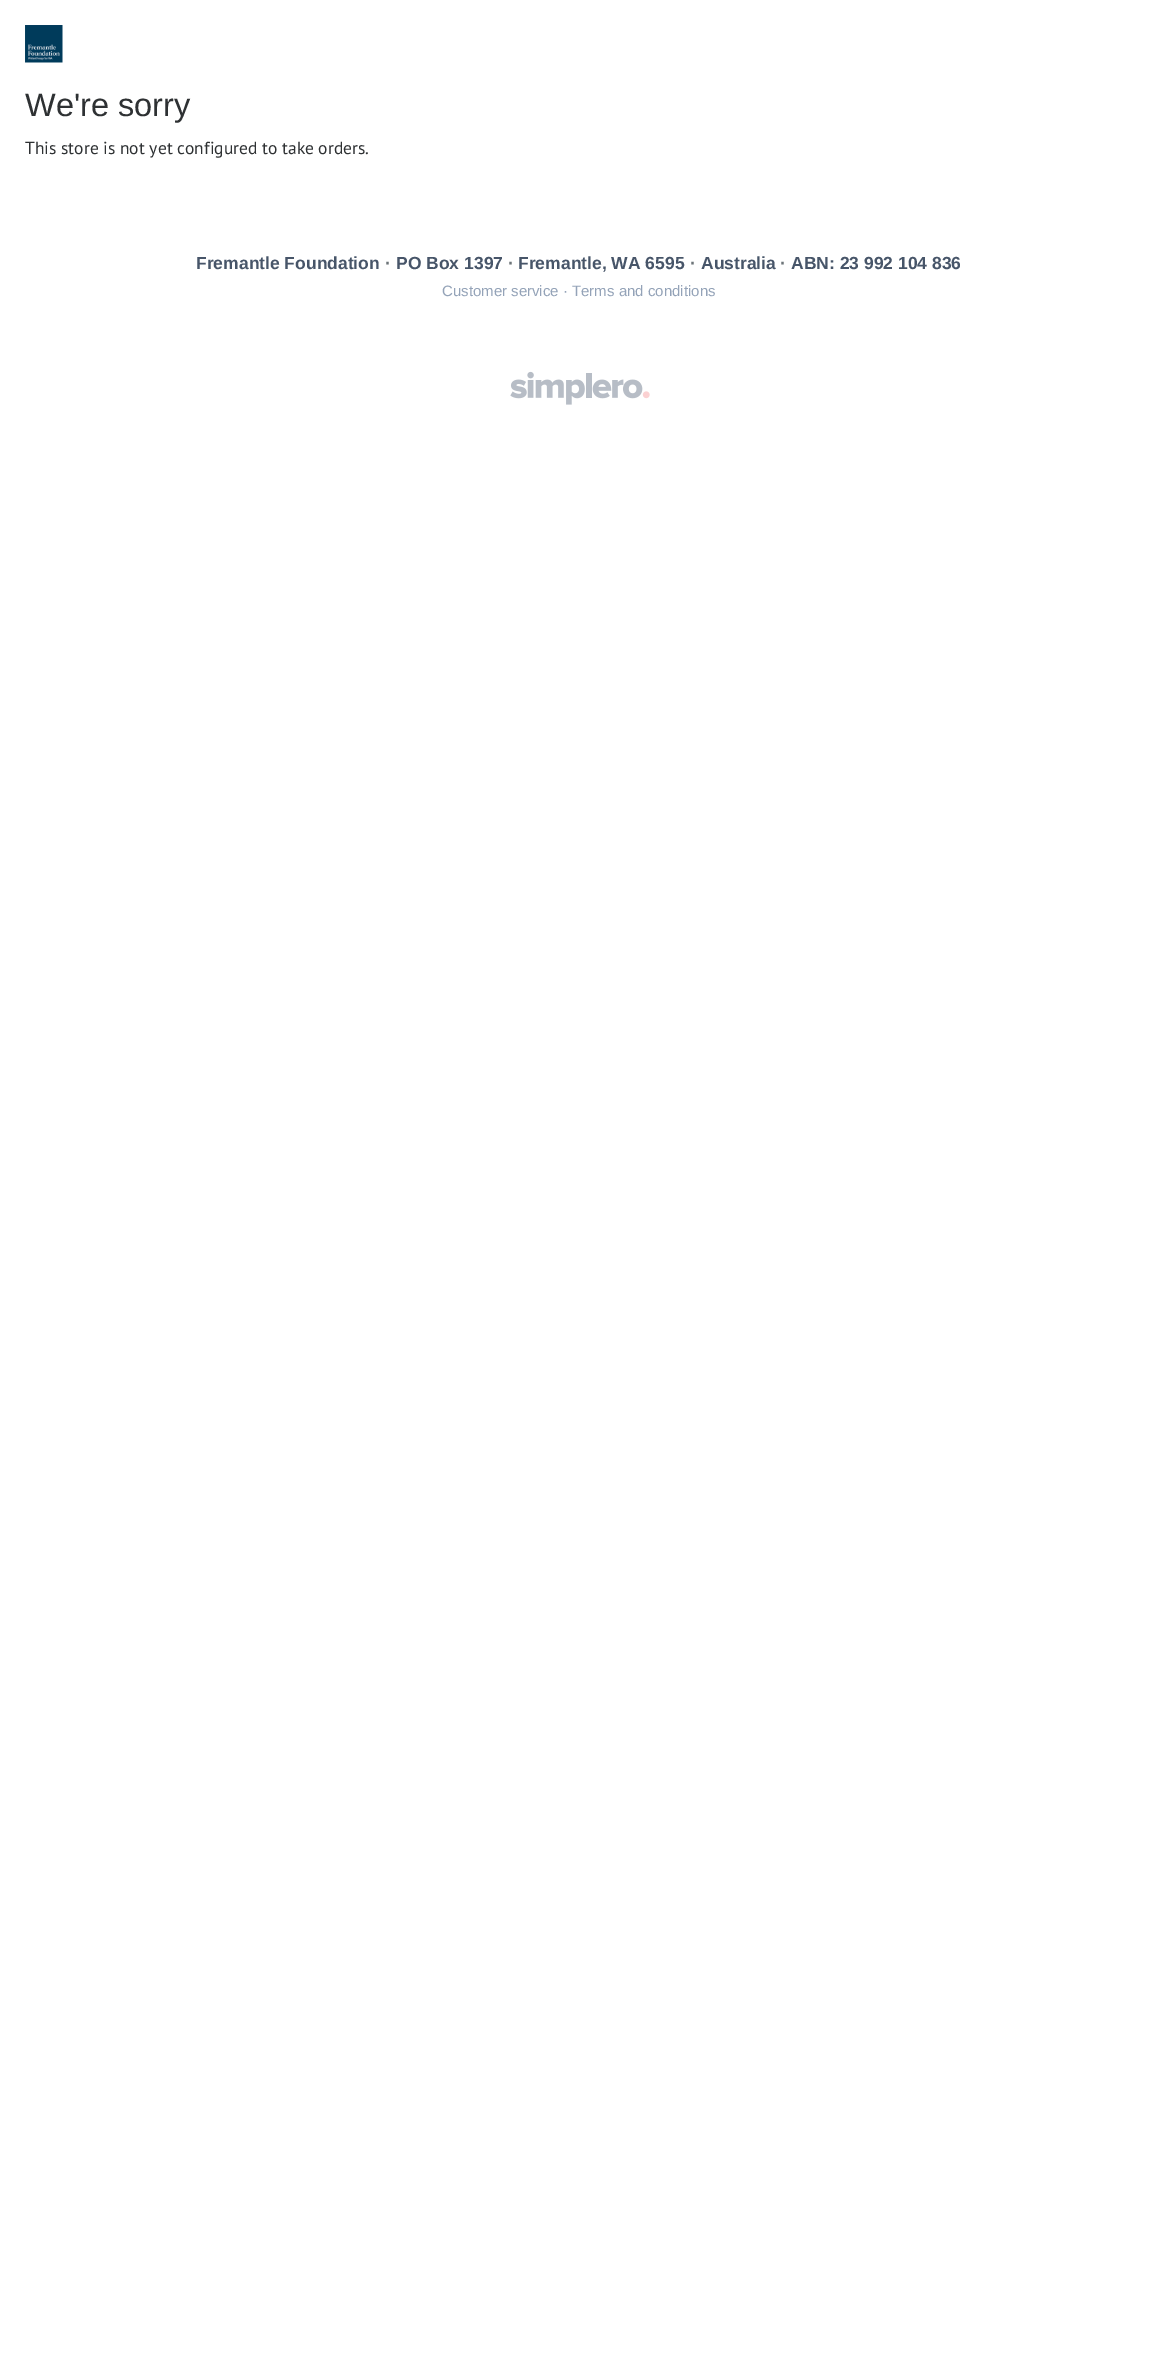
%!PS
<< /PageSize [1157 2357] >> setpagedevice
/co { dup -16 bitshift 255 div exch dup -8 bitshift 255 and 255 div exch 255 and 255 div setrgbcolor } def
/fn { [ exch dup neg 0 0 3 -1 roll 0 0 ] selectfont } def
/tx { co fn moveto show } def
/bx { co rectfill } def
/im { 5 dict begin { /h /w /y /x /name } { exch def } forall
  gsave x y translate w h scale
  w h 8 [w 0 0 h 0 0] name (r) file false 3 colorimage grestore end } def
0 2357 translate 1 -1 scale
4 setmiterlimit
0 0 1157 2357 16#FFFFFF bx
(media/1.raw) 25 25 38 38 im
(media/2.raw) 510 371 140 34 im
(We're sorry) 25 116 /LiberationSans-Regular 32.5 16#2E3133 tx
(This store is not yet configured to take orders.) 25 154 /PTSans-Regular 17.5 16#2E3133 tx
(Fremantle Foundation) 196 269 /LiberationSans-Bold 17.5 16#475569 tx
(·) 385 269 /LiberationSans-Bold 17.5 16#6C7478 tx
(PO Box 1397) 396 269 /LiberationSans-Bold 17.5 16#475569 tx
(·) 508 269 /LiberationSans-Bold 17.5 16#6C7478 tx
(Fremantle, WA 6595) 518 269 /LiberationSans-Bold 17.5 16#475569 tx
(·) 690 269 /LiberationSans-Bold 17.5 16#6C7478 tx
(Australia) 701 269 /LiberationSans-Bold 17.5 16#475569 tx
(·) 780 269 /LiberationSans-Bold 17.5 16#6C7478 tx
(ABN: 23 992 104 836) 791 269 /LiberationSans-Bold 17.5 16#475569 tx
(Customer service · Terms and conditions) 442 296 /LiberationSans-Regular 15 16#94A3B8 tx
showpage
